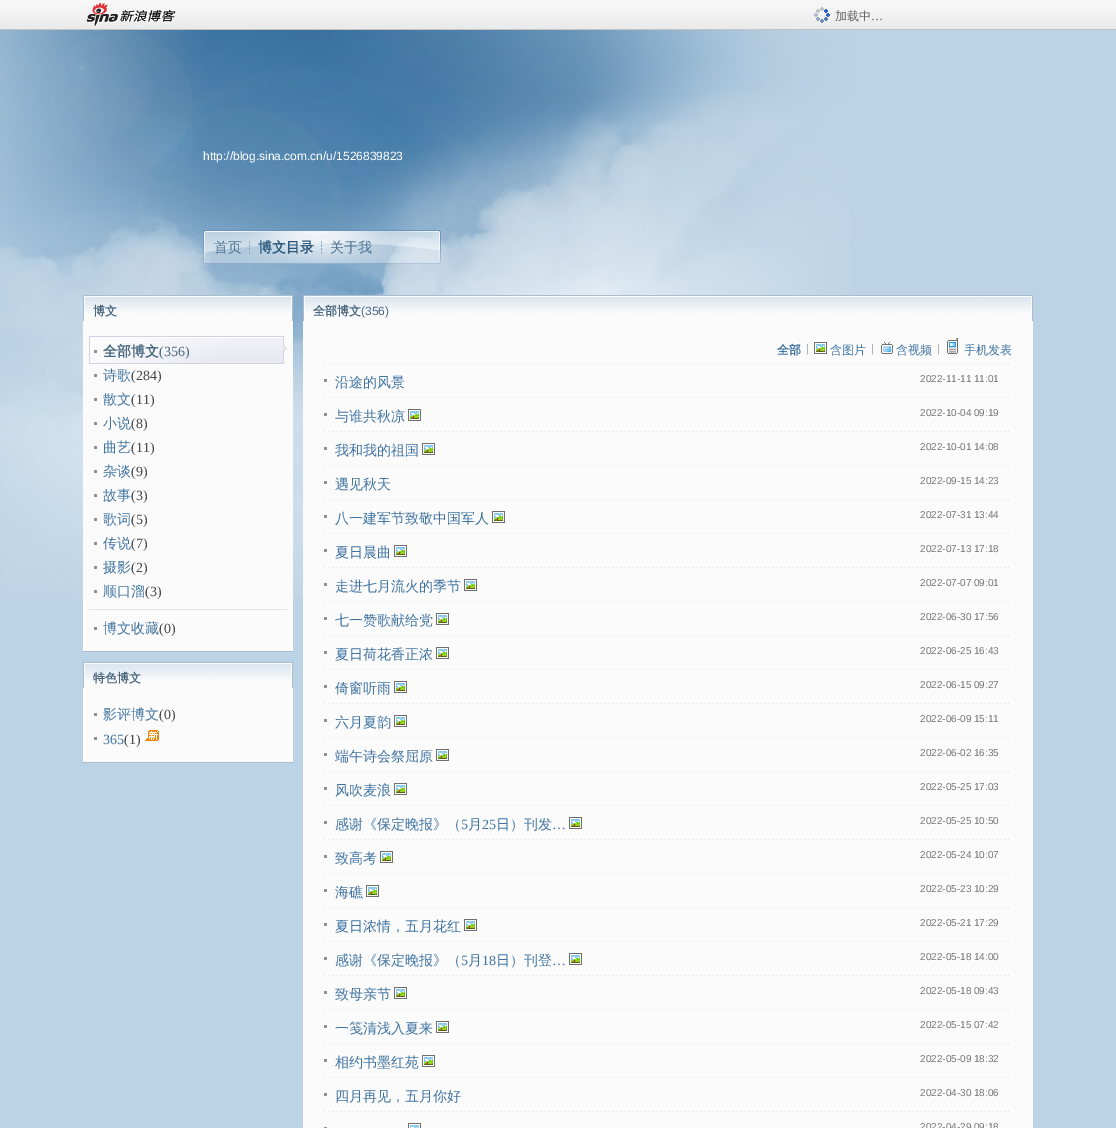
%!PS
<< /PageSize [1116 1128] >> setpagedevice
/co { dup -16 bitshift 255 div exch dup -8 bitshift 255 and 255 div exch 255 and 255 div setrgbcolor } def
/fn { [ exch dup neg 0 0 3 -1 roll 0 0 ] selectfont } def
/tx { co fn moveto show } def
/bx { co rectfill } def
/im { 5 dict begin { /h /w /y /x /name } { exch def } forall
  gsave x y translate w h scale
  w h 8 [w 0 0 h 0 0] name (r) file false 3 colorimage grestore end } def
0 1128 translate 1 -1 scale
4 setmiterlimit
0 0 1116 1128 16#BCD3E5 bx
(media/1.raw) 0 0 1116 30 im
(media/2.raw) 87 3 89 24 im
(media/3.raw) 814 7 16 16 im
(media/4.raw) 0 30 851 569 im
(media/5.raw) 203 230 238 34 im
(media/6.raw) 249 241 1 13 im
(media/7.raw) 321 241 1 13 im
(media/8.raw) 83 295 210 26 im
83 321 210 330 16#FBFBFC bx
(media/9.raw) 89 336 198 28 im
94 350 3 3 16#909090 bx
90 363 193 1 16#D2D2E4 bx
94 374 3 3 16#909090 bx
94 398 3 3 16#909090 bx
94 422 3 3 16#909090 bx
94 446 3 3 16#909090 bx
94 470 3 3 16#909090 bx
94 494 3 3 16#909090 bx
94 518 3 3 16#909090 bx
94 542 3 3 16#909090 bx
94 566 3 3 16#909090 bx
94 590 3 3 16#909090 bx
89 609 198 1 16#E4E1E3 bx
94 627 3 3 16#909090 bx
83 651 210 1 16#A9BDCE bx
(media/8.raw) 83 662 210 26 im
83 688 210 74 16#FBFBFC bx
94 713 3 3 16#909090 bx
94 737 3 3 16#909090 bx
(media/10.raw) 145 730 14 11 im
83 762 210 1 16#A9BDCE bx
(media/11.raw) 303 295 730 26 im
303 321 730 807 16#FBFBFC bx
(media/12.raw) 324 363 685 1 im
(media/13.raw) 814 342 13 12 im
(media/14.raw) 881 342 12 12 im
(media/15.raw) 947 338 11 16 im
(media/12.raw) 324 397 685 1 im
324 379 3 3 16#909090 bx
(media/12.raw) 324 431 685 1 im
324 413 3 3 16#909090 bx
(media/13.raw) 408 409 13 12 im
(media/12.raw) 324 465 685 1 im
324 447 3 3 16#909090 bx
(media/13.raw) 422 443 13 12 im
(media/12.raw) 324 499 685 1 im
324 481 3 3 16#909090 bx
(media/12.raw) 324 533 685 1 im
324 515 3 3 16#909090 bx
(media/13.raw) 492 511 13 12 im
(media/12.raw) 324 567 685 1 im
324 549 3 3 16#909090 bx
(media/13.raw) 394 545 13 12 im
(media/12.raw) 324 601 685 1 im
324 583 3 3 16#909090 bx
(media/13.raw) 464 579 13 12 im
(media/12.raw) 324 635 685 1 im
324 617 3 3 16#909090 bx
(media/13.raw) 436 613 13 12 im
(media/12.raw) 324 669 685 1 im
324 651 3 3 16#909090 bx
(media/13.raw) 436 647 13 12 im
(media/12.raw) 324 703 685 1 im
324 685 3 3 16#909090 bx
(media/13.raw) 394 681 13 12 im
(media/12.raw) 324 737 685 1 im
324 719 3 3 16#909090 bx
(media/13.raw) 394 715 13 12 im
(media/12.raw) 324 771 685 1 im
324 753 3 3 16#909090 bx
(media/13.raw) 436 749 13 12 im
(media/12.raw) 324 805 685 1 im
324 787 3 3 16#909090 bx
(media/13.raw) 394 783 13 12 im
(media/12.raw) 324 839 685 1 im
324 821 3 3 16#909090 bx
(media/13.raw) 569 817 13 12 im
(media/12.raw) 324 873 685 1 im
324 855 3 3 16#909090 bx
(media/13.raw) 380 851 13 12 im
(media/12.raw) 324 907 685 1 im
324 889 3 3 16#909090 bx
(media/13.raw) 366 885 13 12 im
(media/12.raw) 324 941 685 1 im
324 923 3 3 16#909090 bx
(media/13.raw) 464 919 13 12 im
(media/12.raw) 324 975 685 1 im
324 957 3 3 16#909090 bx
(media/13.raw) 569 953 13 12 im
(media/12.raw) 324 1009 685 1 im
324 991 3 3 16#909090 bx
(media/13.raw) 394 987 13 12 im
(media/12.raw) 324 1043 685 1 im
324 1025 3 3 16#909090 bx
(media/13.raw) 436 1021 13 12 im
(media/12.raw) 324 1077 685 1 im
324 1059 3 3 16#909090 bx
(media/13.raw) 422 1055 13 12 im
(media/12.raw) 324 1111 685 1 im
324 1093 3 3 16#909090 bx
324 1127 3 1 16#909090 bx
(media/16.raw) 408 1123 13 5 im
(加载中) 835 20 /WenQuanYiZenHei-Medium 12 16#666666 tx
(…) 871 20 /LiberationSerif-Regular 12 16#666666 tx
(http://blog.sina.com.cn/u/1526839823) 203 160 /LiberationSans-Regular 12 16#FFFFFF tx
(首页) 214 252 /WenQuanYiZenHei-Medium 14 16#4B7290 tx
(博文目录) 258 252 /WenQuanYiZenHei-Bold 14 16#2C597C tx
(关于我) 330 252 /WenQuanYiZenHei-Medium 14 16#4B7290 tx
(博文) 93 315 /WenQuanYiZenHei-Bold 12 16#49687F tx
(全部博文) 103 356 /WenQuanYiZenHei-Bold 14 16#49687F tx
(\(356\)) 159 356 /LiberationSerif-Regular 14 16#49687F tx
(诗歌) 103 380 /WenQuanYiZenHei-Medium 14 16#3E73A0 tx
(\(284\)) 131 380 /LiberationSerif-Regular 14 16#464646 tx
(散文) 103 404 /WenQuanYiZenHei-Medium 14 16#3E73A0 tx
(\(11\)) 131 404 /LiberationSerif-Regular 14 16#464646 tx
(小说) 103 428 /WenQuanYiZenHei-Medium 14 16#3E73A0 tx
(\(8\)) 131 428 /LiberationSerif-Regular 14 16#464646 tx
(曲艺) 103 452 /WenQuanYiZenHei-Medium 14 16#3E73A0 tx
(\(11\)) 131 452 /LiberationSerif-Regular 14 16#464646 tx
(杂谈) 103 476 /WenQuanYiZenHei-Medium 14 16#3E73A0 tx
(\(9\)) 131 476 /LiberationSerif-Regular 14 16#464646 tx
(故事) 103 500 /WenQuanYiZenHei-Medium 14 16#3E73A0 tx
(\(3\)) 131 500 /LiberationSerif-Regular 14 16#464646 tx
(歌词) 103 524 /WenQuanYiZenHei-Medium 14 16#3E73A0 tx
(\(5\)) 131 524 /LiberationSerif-Regular 14 16#464646 tx
(传说) 103 548 /WenQuanYiZenHei-Medium 14 16#3E73A0 tx
(\(7\)) 131 548 /LiberationSerif-Regular 14 16#464646 tx
(摄影) 103 572 /WenQuanYiZenHei-Medium 14 16#3E73A0 tx
(\(2\)) 131 572 /LiberationSerif-Regular 14 16#464646 tx
(顺口溜) 103 596 /WenQuanYiZenHei-Medium 14 16#3E73A0 tx
(\(3\)) 145 596 /LiberationSerif-Regular 14 16#464646 tx
(博文收藏) 103 633 /WenQuanYiZenHei-Medium 14 16#3E73A0 tx
(\(0\)) 159 633 /LiberationSerif-Regular 14 16#464646 tx
(特色博文) 93 682 /WenQuanYiZenHei-Bold 12 16#49687F tx
(影评博文) 103 719 /WenQuanYiZenHei-Medium 14 16#3E73A0 tx
(\(0\)) 159 719 /LiberationSerif-Regular 14 16#464646 tx
(365) 103 744 /LiberationSerif-Regular 14 16#3E73A0 tx
(\(1\)) 124 744 /LiberationSerif-Regular 14 16#464646 tx
(全部博文) 313 315 /WenQuanYiZenHei-Bold 12 16#49687F tx
(\(356\)) 361 315 /LiberationSans-Regular 12 16#49687F tx
(全部) 777 354 /WenQuanYiZenHei-Bold 12 16#3E73A0 tx
(|) 806 352 /LiberationSerif-Regular 12 16#747474 tx
(含图片) 830 354 /WenQuanYiZenHei-Medium 12 16#3E73A0 tx
(|) 871 352 /LiberationSerif-Regular 12 16#747474 tx
(含视频) 896 354 /WenQuanYiZenHei-Medium 12 16#3E73A0 tx
(|) 937 352 /LiberationSerif-Regular 12 16#747474 tx
(手机发表) 964 354 /WenQuanYiZenHei-Medium 12 16#3E73A0 tx
(沿途的风景) 335 387 /WenQuanYiZenHei-Medium 14 16#3E73A0 tx
(2022-11-11 11:01) 920 382 /LiberationSans-Regular 10 16#747474 tx
(与谁共秋凉) 335 421 /WenQuanYiZenHei-Medium 14 16#3E73A0 tx
(2022-10-04 09:19) 920 416 /LiberationSans-Regular 10 16#747474 tx
(我和我的祖国) 335 455 /WenQuanYiZenHei-Medium 14 16#3E73A0 tx
(2022-10-01 14:08) 920 450 /LiberationSans-Regular 10 16#747474 tx
(遇见秋天) 335 489 /WenQuanYiZenHei-Medium 14 16#3E73A0 tx
(2022-09-15 14:23) 920 484 /LiberationSans-Regular 10 16#747474 tx
(八一建军节致敬中国军人) 335 523 /WenQuanYiZenHei-Medium 14 16#3E73A0 tx
(2022-07-31 13:44) 920 518 /LiberationSans-Regular 10 16#747474 tx
(夏日晨曲) 335 557 /WenQuanYiZenHei-Medium 14 16#3E73A0 tx
(2022-07-13 17:18) 920 552 /LiberationSans-Regular 10 16#747474 tx
(走进七月流火的季节) 335 591 /WenQuanYiZenHei-Medium 14 16#3E73A0 tx
(2022-07-07 09:01) 920 586 /LiberationSans-Regular 10 16#747474 tx
(七一赞歌献给党) 335 625 /WenQuanYiZenHei-Medium 14 16#3E73A0 tx
(2022-06-30 17:56) 920 620 /LiberationSans-Regular 10 16#747474 tx
(夏日荷花香正浓) 335 659 /WenQuanYiZenHei-Medium 14 16#3E73A0 tx
(2022-06-25 16:43) 920 654 /LiberationSans-Regular 10 16#747474 tx
(倚窗听雨) 335 693 /WenQuanYiZenHei-Medium 14 16#3E73A0 tx
(2022-06-15 09:27) 920 688 /LiberationSans-Regular 10 16#747474 tx
(六月夏韵) 335 727 /WenQuanYiZenHei-Medium 14 16#3E73A0 tx
(2022-06-09 15:11) 920 722 /LiberationSans-Regular 10 16#747474 tx
(端午诗会祭屈原) 335 761 /WenQuanYiZenHei-Medium 14 16#3E73A0 tx
(2022-06-02 16:35) 920 756 /LiberationSans-Regular 10 16#747474 tx
(风吹麦浪) 335 795 /WenQuanYiZenHei-Medium 14 16#3E73A0 tx
(2022-05-25 17:03) 920 790 /LiberationSans-Regular 10 16#747474 tx
(感谢《保定晚报》（) 335 829 /WenQuanYiZenHei-Medium 14 16#3E73A0 tx
(5) 461 829 /LiberationSerif-Regular 14 16#3E73A0 tx
(月) 468 829 /WenQuanYiZenHei-Medium 14 16#3E73A0 tx
(25) 482 829 /LiberationSerif-Regular 14 16#3E73A0 tx
(日）刊发) 496 829 /WenQuanYiZenHei-Medium 14 16#3E73A0 tx
(…) 552 829 /LiberationSerif-Regular 14 16#3E73A0 tx
(2022-05-25 10:50) 920 824 /LiberationSans-Regular 10 16#747474 tx
(致高考) 335 863 /WenQuanYiZenHei-Medium 14 16#3E73A0 tx
(2022-05-24 10:07) 920 858 /LiberationSans-Regular 10 16#747474 tx
(海礁) 335 897 /WenQuanYiZenHei-Medium 14 16#3E73A0 tx
(2022-05-23 10:29) 920 892 /LiberationSans-Regular 10 16#747474 tx
(夏日浓情，五月花红) 335 931 /WenQuanYiZenHei-Medium 14 16#3E73A0 tx
(2022-05-21 17:29) 920 926 /LiberationSans-Regular 10 16#747474 tx
(感谢《保定晚报》（) 335 965 /WenQuanYiZenHei-Medium 14 16#3E73A0 tx
(5) 461 965 /LiberationSerif-Regular 14 16#3E73A0 tx
(月) 468 965 /WenQuanYiZenHei-Medium 14 16#3E73A0 tx
(18) 482 965 /LiberationSerif-Regular 14 16#3E73A0 tx
(日）刊登) 496 965 /WenQuanYiZenHei-Medium 14 16#3E73A0 tx
(…) 552 965 /LiberationSerif-Regular 14 16#3E73A0 tx
(2022-05-18 14:00) 920 960 /LiberationSans-Regular 10 16#747474 tx
(致母亲节) 335 999 /WenQuanYiZenHei-Medium 14 16#3E73A0 tx
(2022-05-18 09:43) 920 994 /LiberationSans-Regular 10 16#747474 tx
(一笺清浅入夏来) 335 1033 /WenQuanYiZenHei-Medium 14 16#3E73A0 tx
(2022-05-15 07:42) 920 1028 /LiberationSans-Regular 10 16#747474 tx
(相约书墨红苑) 335 1067 /WenQuanYiZenHei-Medium 14 16#3E73A0 tx
(2022-05-09 18:32) 920 1062 /LiberationSans-Regular 10 16#747474 tx
(四月再见，五月你好) 335 1101 /WenQuanYiZenHei-Medium 14 16#3E73A0 tx
(2022-04-30 18:06) 920 1096 /LiberationSans-Regular 10 16#747474 tx
(2022-04-29 09:18) 920 1130 /LiberationSans-Regular 10 16#747474 tx
showpage
